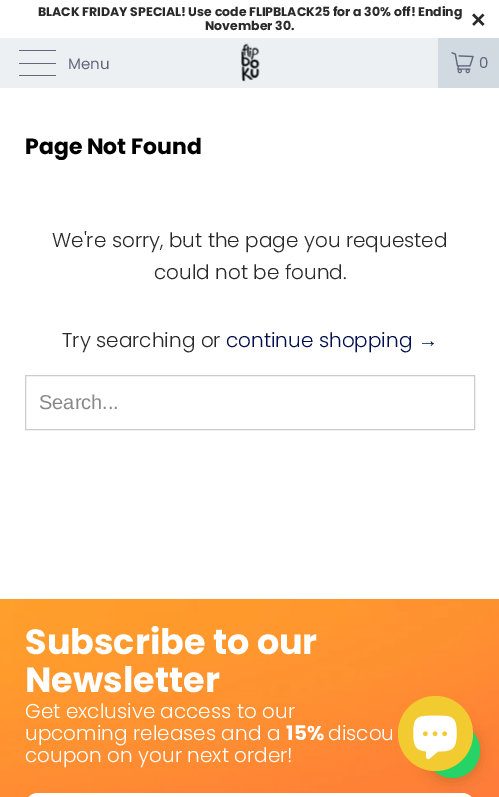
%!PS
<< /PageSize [499 797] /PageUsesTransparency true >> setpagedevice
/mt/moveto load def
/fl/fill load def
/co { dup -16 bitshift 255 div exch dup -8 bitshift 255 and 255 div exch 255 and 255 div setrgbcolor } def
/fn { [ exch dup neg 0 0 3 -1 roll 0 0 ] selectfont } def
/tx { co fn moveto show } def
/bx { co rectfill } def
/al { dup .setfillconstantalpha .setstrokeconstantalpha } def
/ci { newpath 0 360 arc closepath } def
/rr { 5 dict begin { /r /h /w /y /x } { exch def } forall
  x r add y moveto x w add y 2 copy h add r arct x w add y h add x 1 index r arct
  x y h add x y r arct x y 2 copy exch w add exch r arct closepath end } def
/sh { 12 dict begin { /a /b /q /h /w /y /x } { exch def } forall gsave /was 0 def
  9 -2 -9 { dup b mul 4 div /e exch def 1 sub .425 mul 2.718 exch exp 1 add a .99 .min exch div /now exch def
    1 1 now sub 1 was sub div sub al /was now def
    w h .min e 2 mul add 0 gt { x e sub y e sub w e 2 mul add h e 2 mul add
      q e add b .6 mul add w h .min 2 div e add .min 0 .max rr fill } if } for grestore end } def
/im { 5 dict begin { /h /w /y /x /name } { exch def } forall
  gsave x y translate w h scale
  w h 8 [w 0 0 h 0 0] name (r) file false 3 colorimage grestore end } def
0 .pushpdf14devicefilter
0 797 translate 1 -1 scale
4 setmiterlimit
0 0 499 797 16#FFFFFF bx
0 38 438 50 16#ECF0F3 bx
16#62677B co
19 50 37 1 .5 rr fl
19 63 37 1 .5 rr fl
19 75 37 1 .5 rr fl
(media/1.raw) 240 43 20 39 im
438 38 61 50 16#D1D9E1 bx
(media/2.raw) 451 52 23 22 im
16#CCCCCC co
25.5 375.5 449 54 rectstroke
(media/3.raw) 0 599 499 198 im
16#FFFFFF co
25 793 450 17 13 rr fl
16#000000 co
425 726 55 55 27.5 7.5 .15 sh
16#25D366 co
452.5 750.5 27.5 ci fl
16#F1CB30 co
435.5 733.5 37.5 ci fl
(media/4.raw) 413 715 44 45 im
(BLACK FRIDAY SPECIAL! Use code FLIPBLACK25 for a 30% off! Ending) 38 16 /Poppins-Bold 12.5 16#2B2A2A tx
(November 30.) 205 30 /Poppins-Bold 12.5 16#2B2A2A tx
(×) 471 28 /LiberationSans-Bold 25 16#2B2A2A tx
(Menu) 68 69 /Poppins-Regular 15 16#62677B tx
479 68 mt 1 0 (0) ashow
(Page Not Found) 25 154 /Poppins-Bold 22 16#000000 tx
(We're sorry, but the page you requested) 52 247 /Poppins-Light 20 16#2B2A2A tx
(could not be found.) 154 279 /Poppins-Light 20 16#2B2A2A tx
(Try searching or) 62 347 /Poppins-Light 20 16#2B2A2A tx
(continue shopping) 226 347 /Poppins-Light 20 16#020F4C tx
(→) 418 347 /LiberationSans-Regular 20 16#020F4C tx
(Search...) 39 409 /LiberationSans-Regular 20 16#888888 tx
(Subscribe to our) 25 654 /Poppins-Bold 35 16#FFFFFF tx
(Newsletter) 25 692 /Poppins-Bold 35 16#FFFFFF tx
(Get exclusive access to our) 25 718 /Poppins-Light 20 16#FFFFFF tx
(upcoming releases and a) 25 740 /Poppins-Light 20 16#FFFFFF tx
(15%) 286 740 /Poppins-Bold 20 16#FFFFFF tx
(discou) 328 740 /Poppins-Light 20 16#FFFFFF tx
(coupon on your next order!) 25 762 /Poppins-Light 20 16#FFFFFF tx
.poppdf14devicefilter showpage
